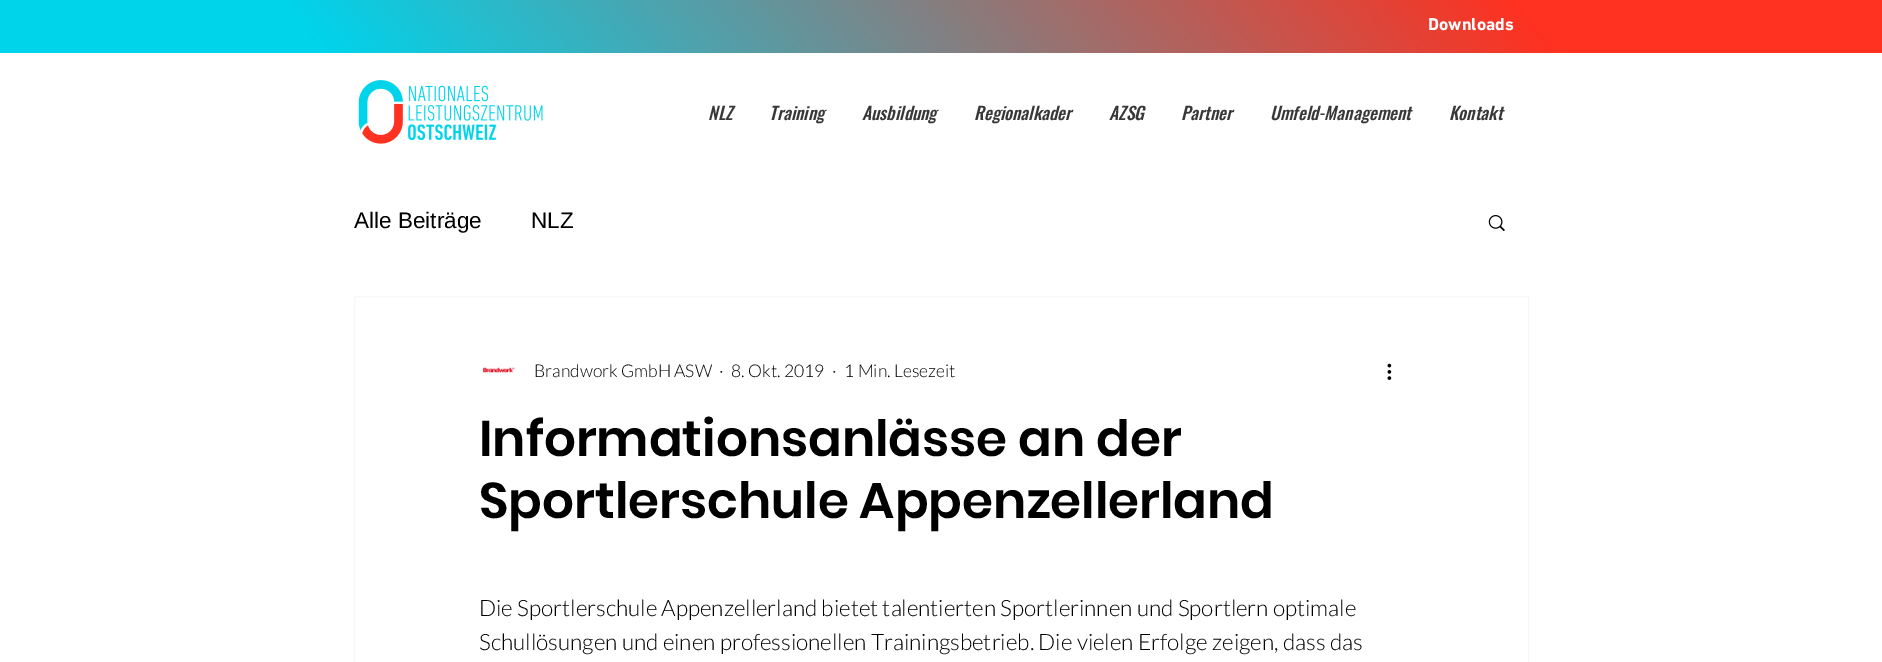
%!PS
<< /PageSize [1882 662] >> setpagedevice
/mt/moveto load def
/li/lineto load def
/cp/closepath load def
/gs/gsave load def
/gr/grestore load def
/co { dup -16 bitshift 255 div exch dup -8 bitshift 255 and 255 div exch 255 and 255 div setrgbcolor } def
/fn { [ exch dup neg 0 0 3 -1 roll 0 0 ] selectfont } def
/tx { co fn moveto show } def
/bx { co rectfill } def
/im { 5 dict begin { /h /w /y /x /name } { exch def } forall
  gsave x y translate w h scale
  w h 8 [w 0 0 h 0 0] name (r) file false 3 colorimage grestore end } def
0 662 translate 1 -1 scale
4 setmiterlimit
0 0 1882 662 16#FFFFFF bx
gs 0 0 mt 1882 0 li 1882 53 li 0 53 li cp clip newpath
<< /ShadingType 2 /ColorSpace /DeviceRGB /Coords [368 499 1515 -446] /Extend [true true] /Function << /FunctionType 3 /Domain [0 1] /Functions [<< /FunctionType 2 /Domain [0 1] /C0 [0 .831 .922] /C1 [0 .831 .922] /N 1 >> << /FunctionType 2 /Domain [0 1] /C0 [0 .831 .922] /C1 [1 .192 .125] /N 1 >> << /FunctionType 2 /Domain [0 1] /C0 [1 .192 .125] /C1 [1 .192 .125] /N 1 >>] /Bounds [.17 .81] /Encode [0 1 0 1 0 1] >> >> shfill gr
(media/1.raw) 358 80 185 64 im
(media/2.raw) 1488 215 17 17 im
16#F7F7F7 co
354.5 296.5 1174 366 rectstroke
(media/3.raw) 482 367 33 6 im
(media/4.raw) 1387 363 5 17 im
(Downloads) 1428 30 /DINNext-Bold 17.5 16#FFFFFF tx
(NLZ) 708 120 /Oswald-MediumItalic 17.5 16#383838 tx
(Training) 769 120 /Oswald-MediumItalic 17.5 16#383838 tx
(Ausbildung) 862 120 /Oswald-MediumItalic 17.5 16#383838 tx
(Regionalkader) 974 120 /Oswald-MediumItalic 17.5 16#383838 tx
(AZSG) 1109 120 /Oswald-MediumItalic 17.5 16#383838 tx
(Partner) 1181 120 /Oswald-MediumItalic 17.5 16#383838 tx
(Umfeld-Management) 1270 120 /Oswald-MediumItalic 17.5 16#383838 tx
(Kontakt) 1449 120 /Oswald-MediumItalic 17.5 16#383838 tx
(Alle Beiträge) 354 228 /LiberationSans-Regular 22.5 16#000001 tx
(NLZ) 531 228 /LiberationSans-Regular 22.5 16#000001 tx
(Brandwork GmbH ASW) 534 377 /Lato-Light 17.5 16#000001 tx
(·) 719 377 /Lato-Light 17.5 16#000001 tx
(8. Okt. 2019) 731 377 /Lato-Light 17.5 16#000001 tx
(·) 832 377 /Lato-Light 17.5 16#000001 tx
(1 Min. Lesezeit) 844 377 /Lato-Light 17.5 16#000001 tx
(Informationsanlässe an der) 479 456 /Poppins-SemiBold 50 16#000001 tx
(Sportlerschule Appenzellerland) 479 518 /Poppins-SemiBold 50 16#000001 tx
(Die Sportlerschule Appenzellerland bietet talentierten Sportlerinnen und Sportlern optimale) 479 616 /Lato-Light 22.5 16#000001 tx
(Schullösungen und einen professionellen Trainingsbetrieb. Die vielen Erfolge zeigen, dass das) 479 650 /Lato-Light 22.5 16#000001 tx
showpage
